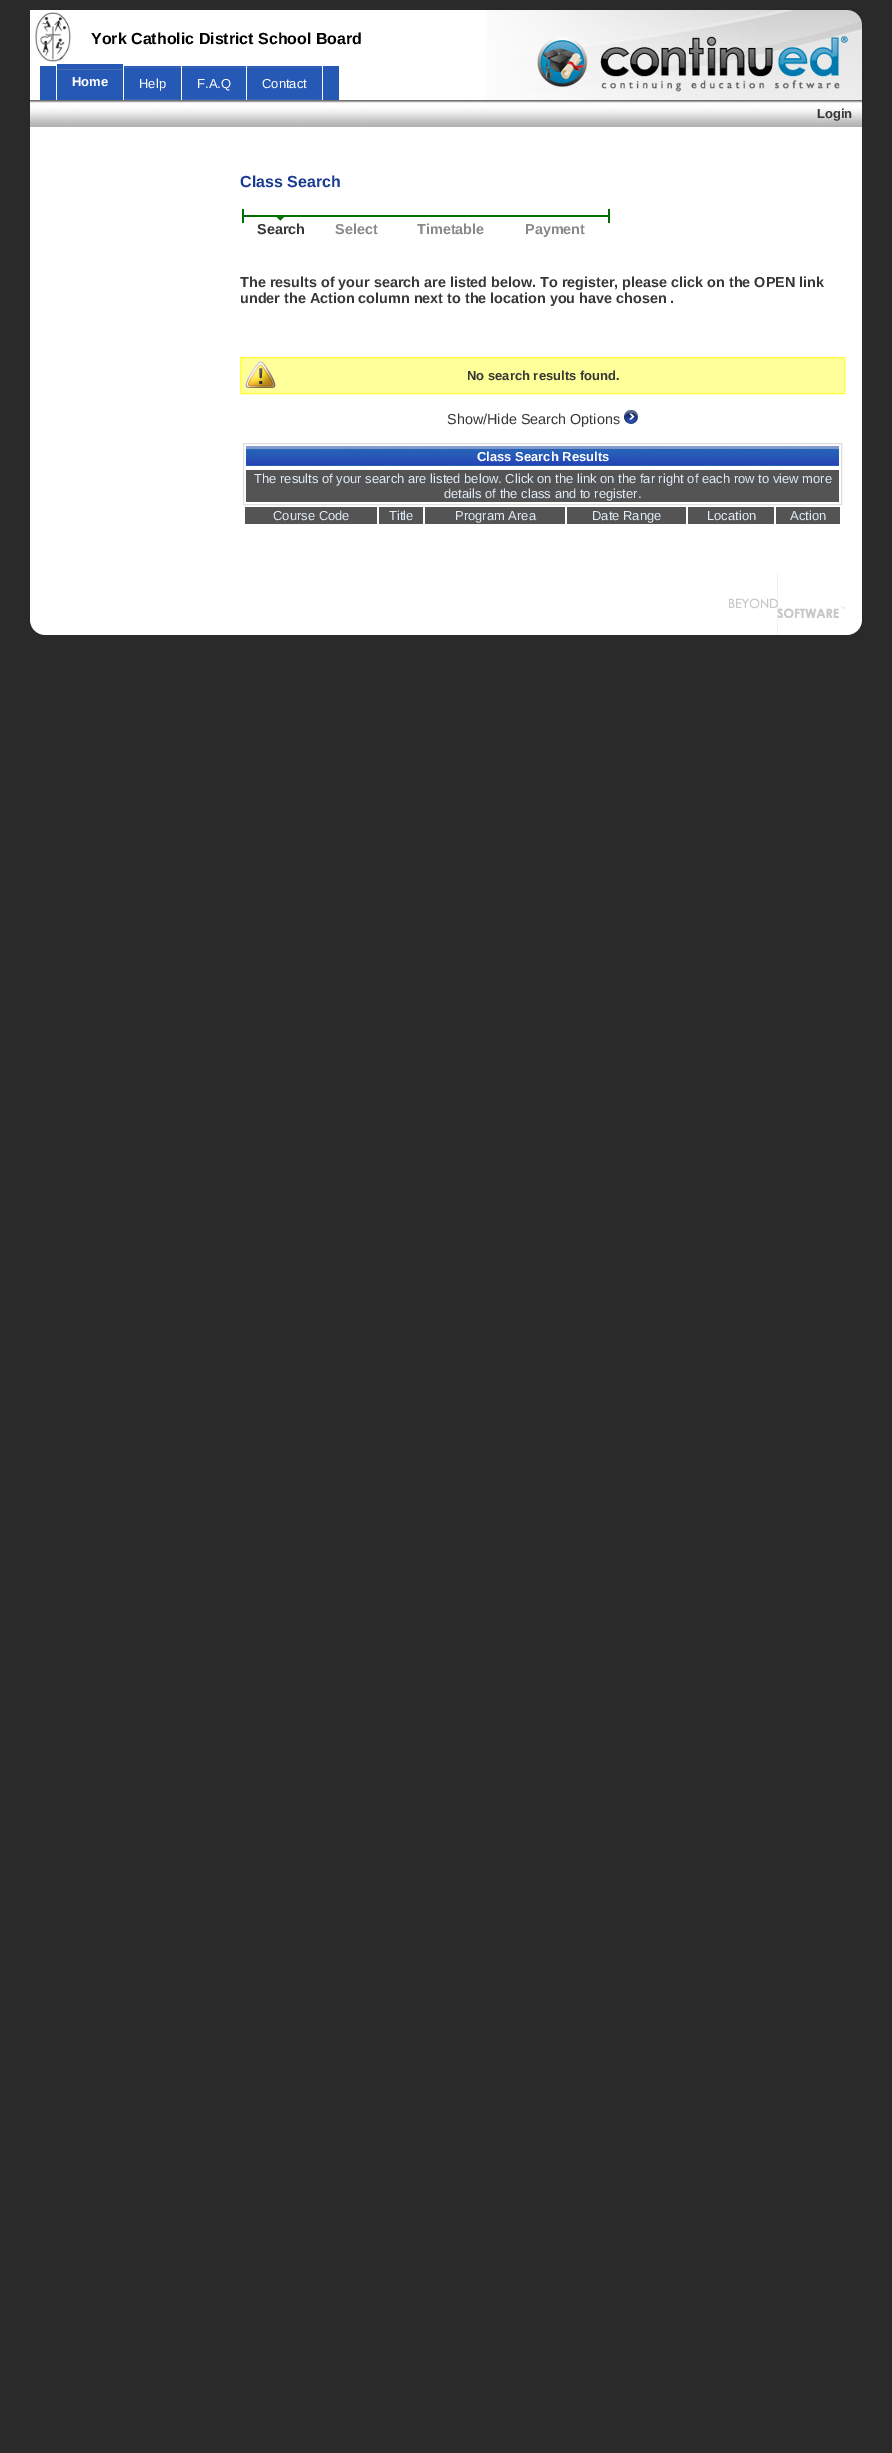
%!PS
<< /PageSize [892 2453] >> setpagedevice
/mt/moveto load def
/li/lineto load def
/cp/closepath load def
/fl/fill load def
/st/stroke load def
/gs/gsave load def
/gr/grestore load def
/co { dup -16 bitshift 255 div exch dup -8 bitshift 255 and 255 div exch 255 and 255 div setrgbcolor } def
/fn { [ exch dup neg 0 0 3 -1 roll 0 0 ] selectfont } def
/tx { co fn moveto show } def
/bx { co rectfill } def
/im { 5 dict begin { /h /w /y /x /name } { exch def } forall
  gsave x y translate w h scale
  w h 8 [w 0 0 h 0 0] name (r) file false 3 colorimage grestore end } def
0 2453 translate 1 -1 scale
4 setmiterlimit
0 0 892 2453 16#2A2A2A bx
30 10 832 625 16#FFFFFF bx
(media/1.raw) 486 10 376 90 im
(media/2.raw) 35 12 36 50 im
40 66 16 34 16#2659B5 bx
(media/3.raw) 57 64 66 36 im
(media/4.raw) 124 66 57 34 im
(media/5.raw) 182 66 64 34 im
(media/6.raw) 247 66 75 34 im
323 66 16 34 16#2659B5 bx
(media/7.raw) 30 100 832 27 im
(media/8.raw) 242 209 5 14 im
(media/9.raw) 605 209 5 14 im
247 215 358 2 16#007003 bx
(media/10.raw) 276 217 8 4 im
16#FFFF99 co
240.5 357.5 mt 844.5 357.5 li 844.5 393.5 li 240.5 393.5 li cp gs fl gr
16#FFFF33 co
st
(media/11.raw) 245 361 31 27 im
(media/12.raw) 624 410 14 14 im
16#DEDEDE co
243.5 443.5 598 61 rectstroke
(media/13.raw) 246 446 593 20 im
246 470 593 32 16#545454 bx
245 507 132 17 16#545454 bx
379 507 44 17 16#545454 bx
425 507 140 17 16#545454 bx
567 507 119 17 16#545454 bx
688 507 86 17 16#545454 bx
776 507 64 17 16#545454 bx
(media/14.raw) 729 573 133 62 im
(media/15.raw) 30 610 16 25 im
(York Catholic District School Board) 91 44 /LiberationSans-Bold 16 16#000000 tx
(Home) 72 86 /LiberationSans-Bold 13 16#FFFFFF tx
(Help) 139 88 /LiberationSans-Regular 13 16#FFFFFF tx
(F.A.Q) 197 88 /LiberationSans-Regular 13 16#FFFFFF tx
(Contact) 262 88 /LiberationSans-Regular 13 16#FFFFFF tx
(Login) 817 118 /LiberationSans-Bold 13 16#373737 tx
(Class Search) 240 187 /LiberationSans-Bold 16 16#193A91 tx
(Search) 257 234 /LiberationSans-Bold 14.4 16#373737 tx
(Select) 335 234 /LiberationSans-Bold 14.4 16#888888 tx
(Timetable) 417 234 /LiberationSans-Bold 14.4 16#888888 tx
(Payment) 525 234 /LiberationSans-Bold 14.4 16#888888 tx
(The results of your search are listed below. To register, please click on the OPEN link) 240 287 /LiberationSans-Bold 14.4 16#373737 tx
(under the Action column next to the location you have chosen .) 240 303 /LiberationSans-Bold 14.4 16#373737 tx
(No search results found.) 467 380 /LiberationSans-Bold 13 16#373737 tx
(Show/Hide Search Options) 447 424 /LiberationSans-Regular 14.4 16#373737 tx
(Class Search Results) 477 461 /LiberationSans-Bold 13 16#FFFFFF tx
(The results of your search are listed below. Click on the link on the far right of each row to view more) 254 483 /LiberationSans-Regular 13 16#DFEBF6 tx
(details of the class and to register.) 444 498 /LiberationSans-Regular 13 16#DFEBF6 tx
(Course Code) 273 520 /LiberationSans-Regular 13 16#DFEBF6 tx
(Title) 389 520 /LiberationSans-Regular 13 16#DFEBF6 tx
(Program Area) 455 520 /LiberationSans-Regular 13 16#DFEBF6 tx
(Date Range) 592 520 /LiberationSans-Regular 13 16#DFEBF6 tx
(Location) 707 520 /LiberationSans-Regular 13 16#DFEBF6 tx
(Action) 790 520 /LiberationSans-Regular 13 16#DFEBF6 tx
showpage
